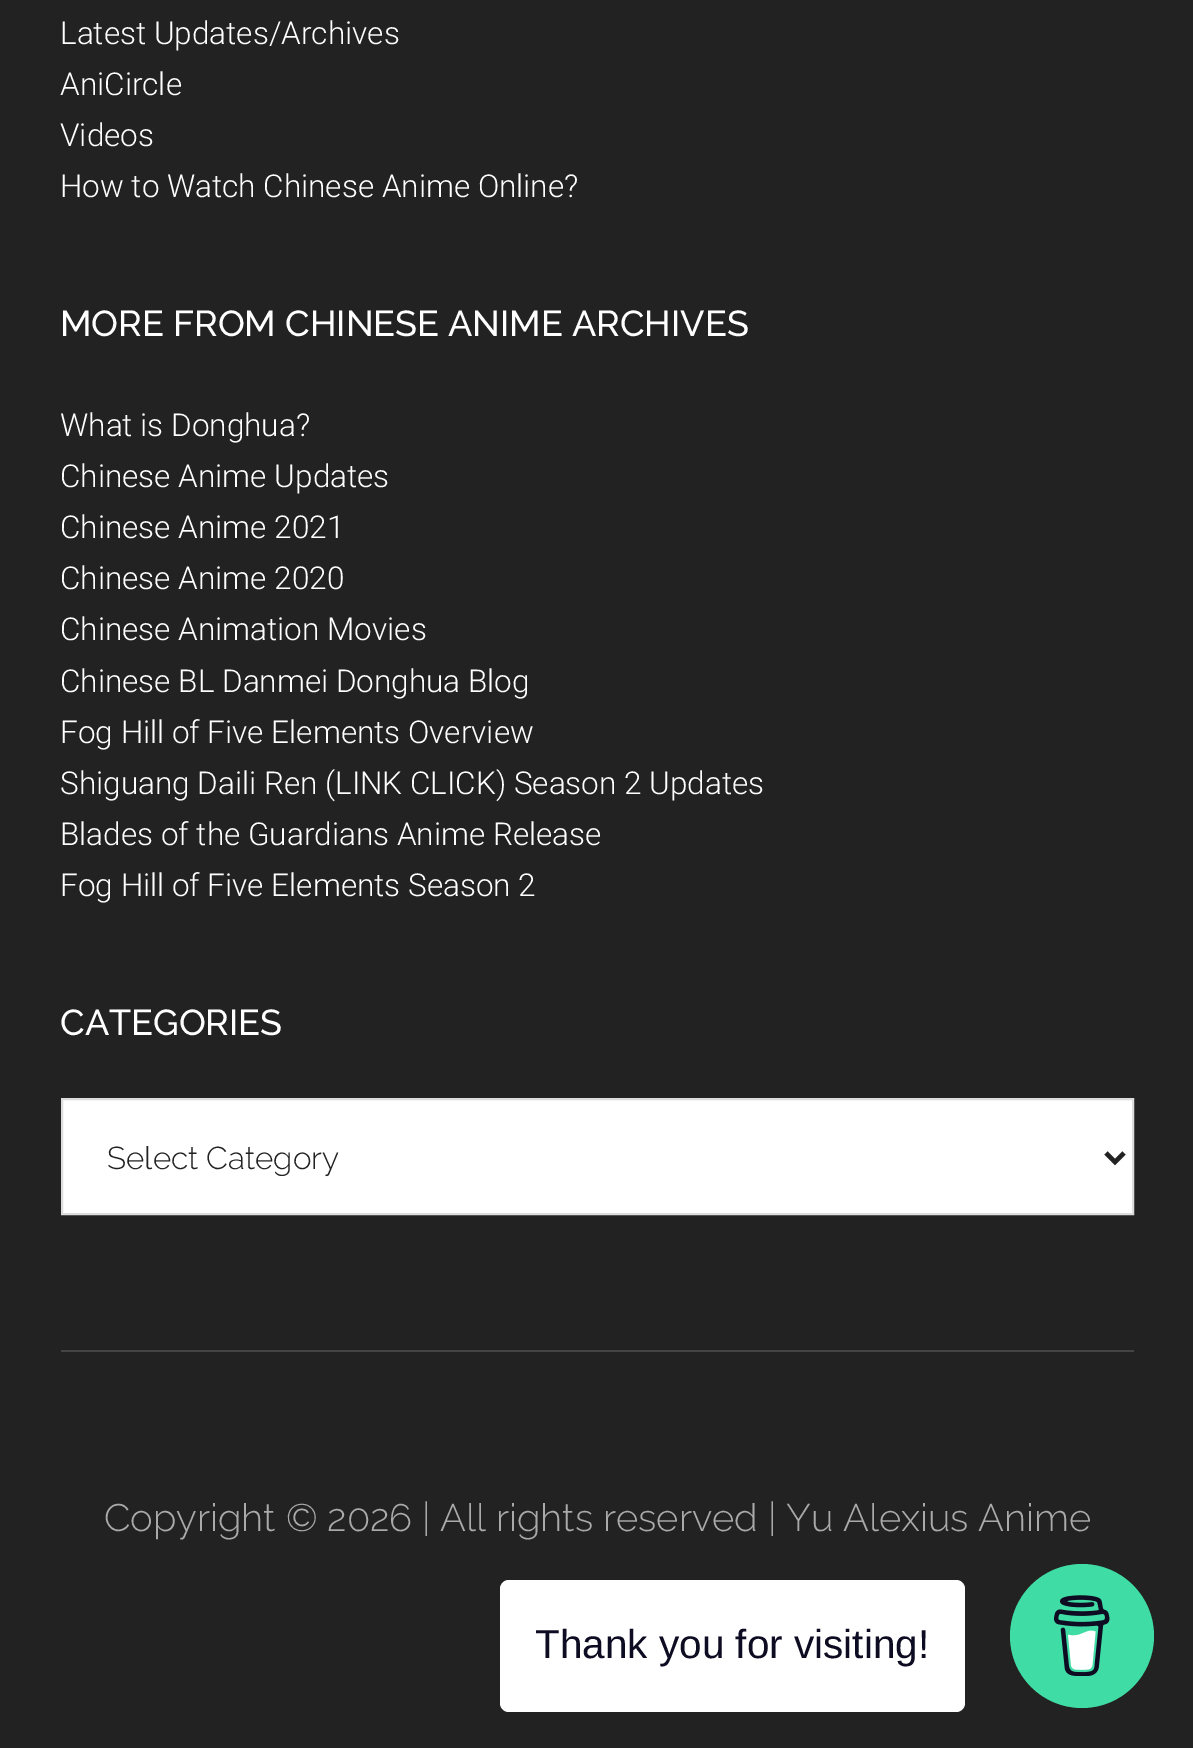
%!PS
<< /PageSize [1193 1748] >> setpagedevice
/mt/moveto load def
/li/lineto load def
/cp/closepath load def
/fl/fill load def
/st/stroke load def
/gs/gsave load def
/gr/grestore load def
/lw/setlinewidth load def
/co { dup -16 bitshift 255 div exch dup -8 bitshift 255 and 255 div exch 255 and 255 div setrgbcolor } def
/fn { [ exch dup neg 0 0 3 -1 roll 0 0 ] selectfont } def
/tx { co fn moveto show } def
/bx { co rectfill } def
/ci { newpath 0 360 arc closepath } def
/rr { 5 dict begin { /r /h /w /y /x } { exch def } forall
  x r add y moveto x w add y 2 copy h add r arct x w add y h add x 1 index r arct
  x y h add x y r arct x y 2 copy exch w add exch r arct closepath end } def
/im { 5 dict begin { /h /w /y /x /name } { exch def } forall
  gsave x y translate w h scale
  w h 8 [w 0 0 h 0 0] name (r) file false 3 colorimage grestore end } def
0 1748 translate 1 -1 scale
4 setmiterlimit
0 0 1193 1748 16#222222 bx
16#FFFFFF co
62 1099 mt 1133 1099 li 1133 1214 li 62 1214 li cp gs fl gr
16#DDDDDD co
2 lw
st
16#222222 co
4.5 lw
1106 1153 mt 1115 1162 li 1124 1153 li st
61 1350 1073 2 16#444444 bx
16#FFFFFF co
500 1580 465 132 9 rr fl
16#40DCA5 co
1082 1636 72 ci fl
(media/1.raw) 1053 1595 57 81 im
(Latest Updates/Archives) 60 44 /Roboto-Light 31.5 16#FFFFFF tx
(AniCircle) 60 95 /Roboto-Light 31.5 16#FFFFFF tx
(Videos) 60 146 /Roboto-Light 31.5 16#FFFFFF tx
(How to Watch Chinese Anime Online?) 60 197 /Roboto-Light 31.5 16#FFFFFF tx
(MORE FROM CHINESE ANIME ARCHIVES) 60 336 /Raleway-Medium 36 16#FFFFFF tx
(What is Donghua?) 60 436 /Roboto-Light 31.5 16#FFFFFF tx
(Chinese Anime Updates) 60 487 /Roboto-Light 31.5 16#FFFFFF tx
(Chinese Anime 2021) 60 538 /Roboto-Light 31.5 16#FFFFFF tx
(Chinese Anime 2020) 60 589 /Roboto-Light 31.5 16#FFFFFF tx
(Chinese Animation Movies) 60 640 /Roboto-Light 31.5 16#FFFFFF tx
(Chinese BL Danmei Donghua Blog) 60 692 /Roboto-Light 31.5 16#FFFFFF tx
(Fog Hill of Five Elements Overview) 60 743 /Roboto-Light 31.5 16#FFFFFF tx
(Shiguang Daili Ren \(LINK CLICK\) Season 2 Updates) 60 794 /Roboto-Light 31.5 16#FFFFFF tx
(Blades of the Guardians Anime Release) 60 845 /Roboto-Light 31.5 16#FFFFFF tx
(Fog Hill of Five Elements Season 2) 60 896 /Roboto-Light 31.5 16#FFFFFF tx
(CATEGORIES) 60 1035 /Raleway-Medium 36 16#FFFFFF tx
(Select Category) 107 1169 /Raleway-Light 31.5 16#222222 tx
(Copyright © 2026 | All rights reserved | Yu Alexius Anime) 104 1531 /Raleway-Light 38.25 16#AAAAAA tx
(Thank you for visiting!) 535 1658 /LiberationSans-Regular 40.5 16#0D0C22 tx
showpage
